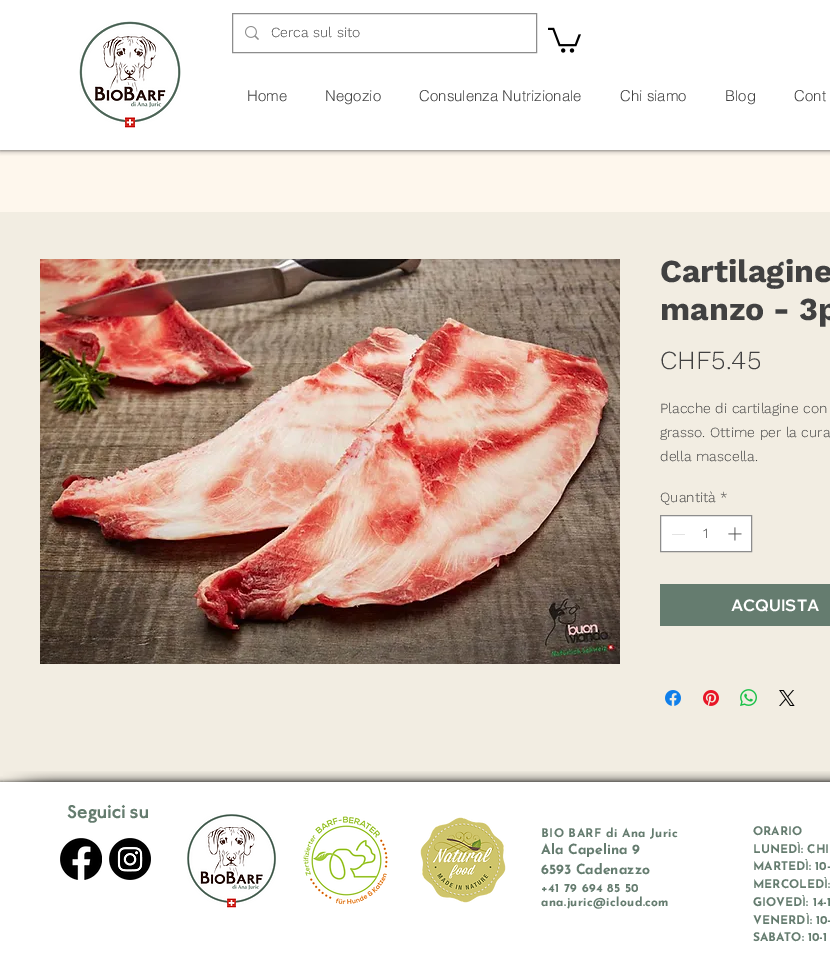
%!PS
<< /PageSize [830 959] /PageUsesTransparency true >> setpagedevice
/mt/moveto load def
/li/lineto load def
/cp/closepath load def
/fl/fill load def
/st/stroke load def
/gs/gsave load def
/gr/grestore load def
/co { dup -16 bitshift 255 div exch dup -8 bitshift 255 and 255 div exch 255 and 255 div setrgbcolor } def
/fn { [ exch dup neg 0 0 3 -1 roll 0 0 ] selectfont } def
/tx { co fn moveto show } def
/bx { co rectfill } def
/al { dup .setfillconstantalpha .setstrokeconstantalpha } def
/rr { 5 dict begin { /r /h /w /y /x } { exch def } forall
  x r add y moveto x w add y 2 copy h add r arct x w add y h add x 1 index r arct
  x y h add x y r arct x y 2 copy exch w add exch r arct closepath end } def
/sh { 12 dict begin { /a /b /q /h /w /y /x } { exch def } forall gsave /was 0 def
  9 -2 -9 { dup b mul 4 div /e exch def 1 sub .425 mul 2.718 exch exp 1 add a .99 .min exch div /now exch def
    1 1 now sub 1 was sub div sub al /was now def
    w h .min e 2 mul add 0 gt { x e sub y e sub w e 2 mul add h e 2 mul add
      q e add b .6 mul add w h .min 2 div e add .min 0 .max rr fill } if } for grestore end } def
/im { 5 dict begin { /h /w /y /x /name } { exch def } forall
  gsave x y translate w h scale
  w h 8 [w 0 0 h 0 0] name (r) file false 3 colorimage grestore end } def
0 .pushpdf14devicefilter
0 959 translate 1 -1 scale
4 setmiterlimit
0 0 830 959 16#FEF7ED bx
16#000000 co
0 0 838 150 0 2.5 .7 sh
0 0 830 150 16#FFFFFF bx
(media/1.raw) 79 21 102 107 im
16#8D8D8D co
232.5 13.5 304 39 rectstroke
(media/2.raw) 245 26 14 14 im
(media/3.raw) 548 27 33 26 im
0 212 830 570 16#F2EDE2 bx
(media/4.raw) 40 259 580 405 im
16#FFFFFF co
660.5 515.5 mt 751.5 515.5 li 751.5 551.5 li 660.5 551.5 li cp gs fl gr
16#8D8D8D co
st
672 534 13 1 16#E3E3E3 bx
(media/5.raw) 728 527 14 14 im
660 584 170 42 16#657C6F bx
(media/6.raw) 665 690 16 16 im
(media/7.raw) 703 690 16 16 im
(media/8.raw) 740 689 17 17 im
(media/9.raw) 779 690 16 16 im
16#000000 co
0 782 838 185 0 2.5 .7 sh
0 782 830 177 16#FFFFFF bx
(media/10.raw) 3 771 97 11 im
(media/11.raw) 100 771 730 11 im
(media/12.raw) 187 814 89 94 im
(media/13.raw) 303 816 85 89 im
(media/14.raw) 420 817 86 86 im
(media/15.raw) 60 838 42 42 im
(media/16.raw) 109 838 42 42 im
(Cerca sul sito) 271 37 /WorkSans-Light 14 16#414141 tx
(Home) 247 101 /helvetica-Light 15 16#414141 tx
(Negozio) 325 101 /helvetica-Light 15 16#414141 tx
(Consulenza Nutrizionale) 419 101 /helvetica-Light 15 16#414141 tx
(Chi siamo) 620 101 /helvetica-Light 15 16#414141 tx
(Blog) 725 101 /helvetica-Light 15 16#414141 tx
(Cont) 794 101 /helvetica-Light 15 16#414141 tx
(Cartilagine) 660 282 /WorkSans-Bold 32 16#414141 tx
(manzo - 3p) 660 320 /WorkSans-Bold 32 16#414141 tx
(CHF5.45) 660 369 /WorkSans-Light 26 16#414141 tx
(Placche di cartilagine con) 660 413 /WorkSans-Light 14 16#414141 tx
(grasso. Ottime per la cura) 660 437 /WorkSans-Light 14 16#414141 tx
(della mascella.) 660 461 /WorkSans-Light 14 16#414141 tx
(Quantità) 660 502 /WorkSans-Light 14 16#414141 tx
(*) 720 502 /WorkSans-Light 14 16#414141 tx
(1) 703 538 /WorkSans-Light 14 16#414141 tx
(ACQUISTA) 731 611 /WixMadeforDisplay-Bold 16 16#FFFFFF tx
(Seguici su) 67 818 /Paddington-Bold 20 16#657C6F tx
/JosefinSans-Thin 12 fn
541 837 mt .4 0 (BIO BARF di Ana Juric) ashow
(Ala Capelina 9) 541 854 /JosefinSans-Thin 14 16#657C6F tx
(6593 Cadenazzo) 541 874 /JosefinSans-Thin 14 16#657C6F tx
/JosefinSans-Thin 12 fn
541 892 mt .4 0 (+41 79 694 85 50) ashow
541 906 mt .4 0 (ana.juric@icloud.com) ashow
(ORARIO) 753 835 /JosefinSans-Thin 12 16#657C6F tx
(LUNEDÌ: CHI) 753 853 /JosefinSans-Thin 12 16#657C6F tx
(MARTEDÌ: 10-) 753 870 /JosefinSans-Thin 12 16#657C6F tx
(MERCOLEDÌ:) 753 888 /JosefinSans-Thin 12 16#657C6F tx
(GIOVEDÌ: 14-1) 753 906 /JosefinSans-Thin 12 16#657C6F tx
(VENERDÌ: 10-) 753 924 /JosefinSans-Thin 12 16#657C6F tx
(SABATO: 10-1) 753 941 /JosefinSans-Thin 12 16#657C6F tx
.poppdf14devicefilter showpage
